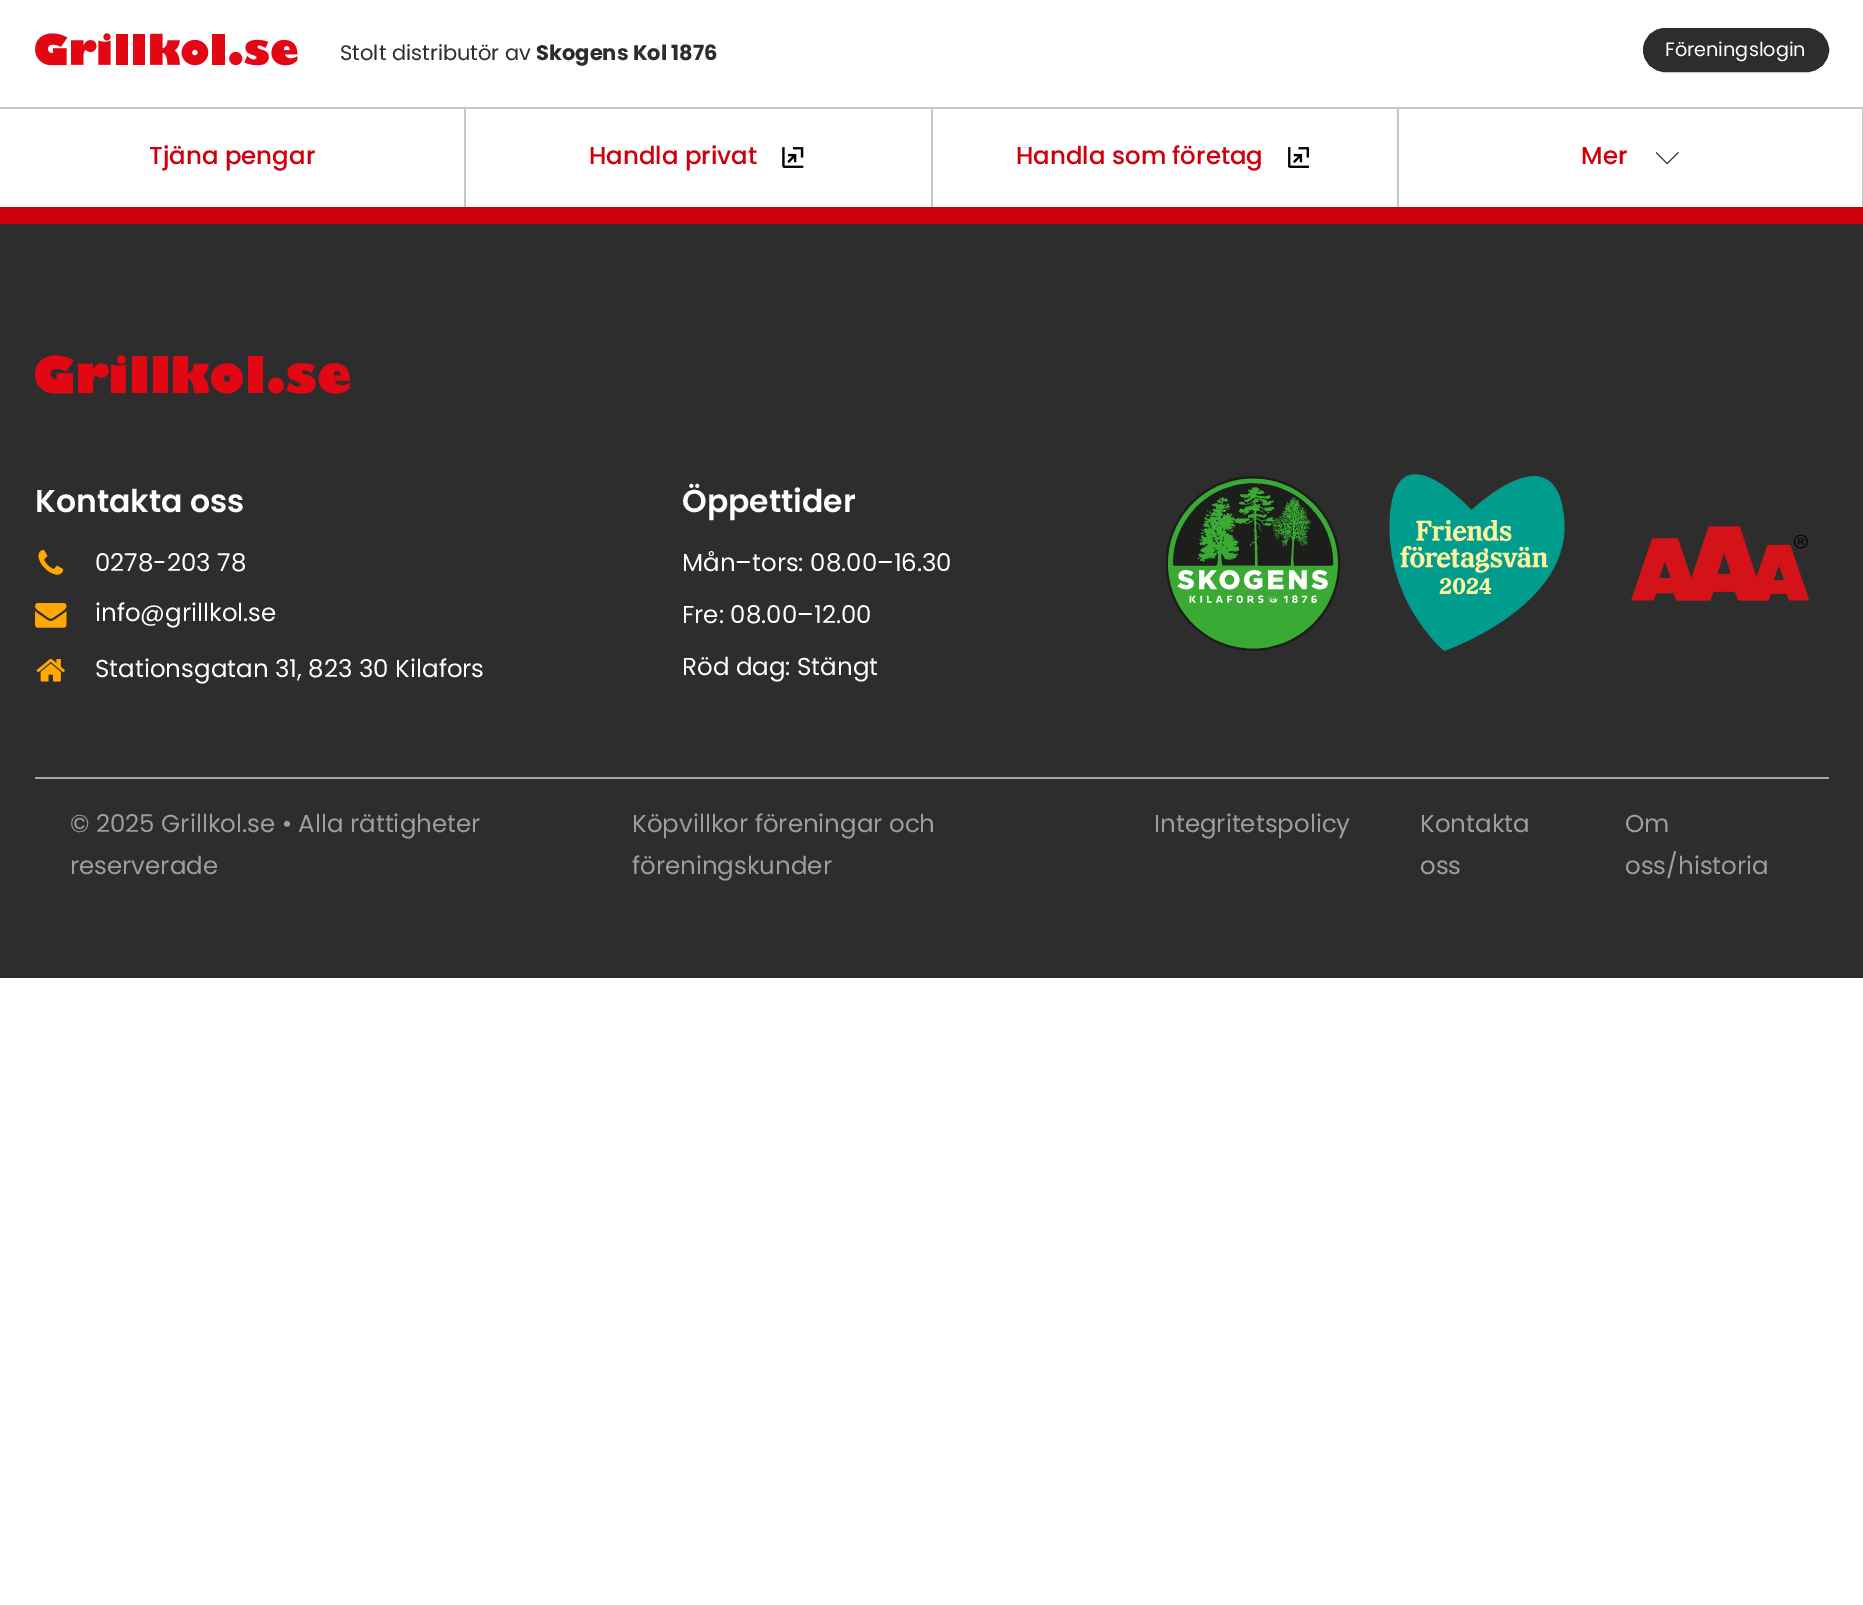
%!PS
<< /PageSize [1863 1605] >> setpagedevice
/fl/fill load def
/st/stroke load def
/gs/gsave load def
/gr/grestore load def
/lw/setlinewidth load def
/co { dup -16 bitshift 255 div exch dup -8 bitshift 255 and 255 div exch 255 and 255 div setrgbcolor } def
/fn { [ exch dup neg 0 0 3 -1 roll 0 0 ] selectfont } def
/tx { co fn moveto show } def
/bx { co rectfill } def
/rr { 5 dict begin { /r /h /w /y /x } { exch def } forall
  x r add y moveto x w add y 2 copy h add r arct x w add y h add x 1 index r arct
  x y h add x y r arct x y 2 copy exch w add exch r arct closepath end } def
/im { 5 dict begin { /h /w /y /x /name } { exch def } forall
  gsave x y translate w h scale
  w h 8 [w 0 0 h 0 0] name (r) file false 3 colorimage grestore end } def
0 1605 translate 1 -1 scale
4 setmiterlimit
0 0 1863 1605 16#FFFFFF bx
(media/1.raw) 35 33 263 33 im
16#2D2D2D co
1644 29 184 42 21 rr gs fl gr
2 lw
st
0 107 1863 2 16#C6C6C6 bx
464 109 2 98 16#C6C6C6 bx
931 109 2 98 16#C6C6C6 bx
(media/2.raw) 782 147 22 21 im
1397 109 2 98 16#C6C6C6 bx
(media/3.raw) 1288 147 21 21 im
1862 109 1 98 16#C6C6C6 bx
(media/4.raw) 1656 152 23 13 im
0 224 1863 754 16#2D2D2D bx
0 207 1863 17 16#CE000D bx
(media/5.raw) 35 355 315 39 im
(media/6.raw) 38 550 26 25 im
(media/7.raw) 35 603 32 25 im
(media/8.raw) 36 659 29 23 im
(media/9.raw) 1166 476 175 175 im
(media/10.raw) 1389 474 176 177 im
(media/11.raw) 1631 526 179 75 im
35 777 1794 2 16#A5A5A5 bx
(Stolt distributör av) 340 60 /Poppins-Regular 21 16#2D2D2D tx
(Skogens Kol 1876) 536 60 /Poppins-Bold 21 16#2D2D2D tx
(Föreningslogin) 1665 56 /Poppins-Regular 19.25 16#FFFFFF tx
(Tjäna pengar) 149 164 /Poppins-Medium 24.5 16#CE000D tx
(Handla privat) 589 164 /Poppins-Medium 24.5 16#CE000D tx
(Handla som företag) 1016 164 /Poppins-Medium 24.5 16#CE000D tx
(Mer) 1581 164 /Poppins-Medium 24.5 16#CE000D tx
(Kontakta oss) 35 512 /Poppins-SemiBold 31.5 16#FFFFFF tx
(0278-203 78) 95 571 /Poppins-Regular 24.5 16#FFFFFF tx
(info@grillkol.se) 95 621 /Poppins-Regular 24.5 16#FFFFFF tx
(Stationsgatan 31, 823 30 Kilafors) 95 677 /Poppins-Regular 24.5 16#FFFFFF tx
(Öppettider) 682 512 /Poppins-SemiBold 31.5 16#FFFFFF tx
(Mån–tors: 08.00–16.30) 682 571 /Poppins-Regular 24.5 16#FFFFFF tx
(Fre: 08.00–12.00) 682 623 /Poppins-Regular 24.5 16#FFFFFF tx
(Röd dag: Stängt) 682 675 /Poppins-Regular 24.5 16#FFFFFF tx
(© 2025 Grillkol.se • Alla rättigheter) 70 832 /Poppins-Regular 24.5 16#9E9E9E tx
(reserverade) 70 874 /Poppins-Regular 24.5 16#9E9E9E tx
(Köpvillkor föreningar och) 632 832 /Poppins-Regular 24.5 16#9E9E9E tx
(föreningskunder) 632 874 /Poppins-Regular 24.5 16#9E9E9E tx
(Integritetspolicy) 1154 832 /Poppins-Regular 24.5 16#9E9E9E tx
(Kontakta) 1420 832 /Poppins-Regular 24.5 16#9E9E9E tx
(oss) 1420 874 /Poppins-Regular 24.5 16#9E9E9E tx
(Om) 1625 832 /Poppins-Regular 24.5 16#9E9E9E tx
(oss/historia) 1625 874 /Poppins-Regular 24.5 16#9E9E9E tx
showpage
